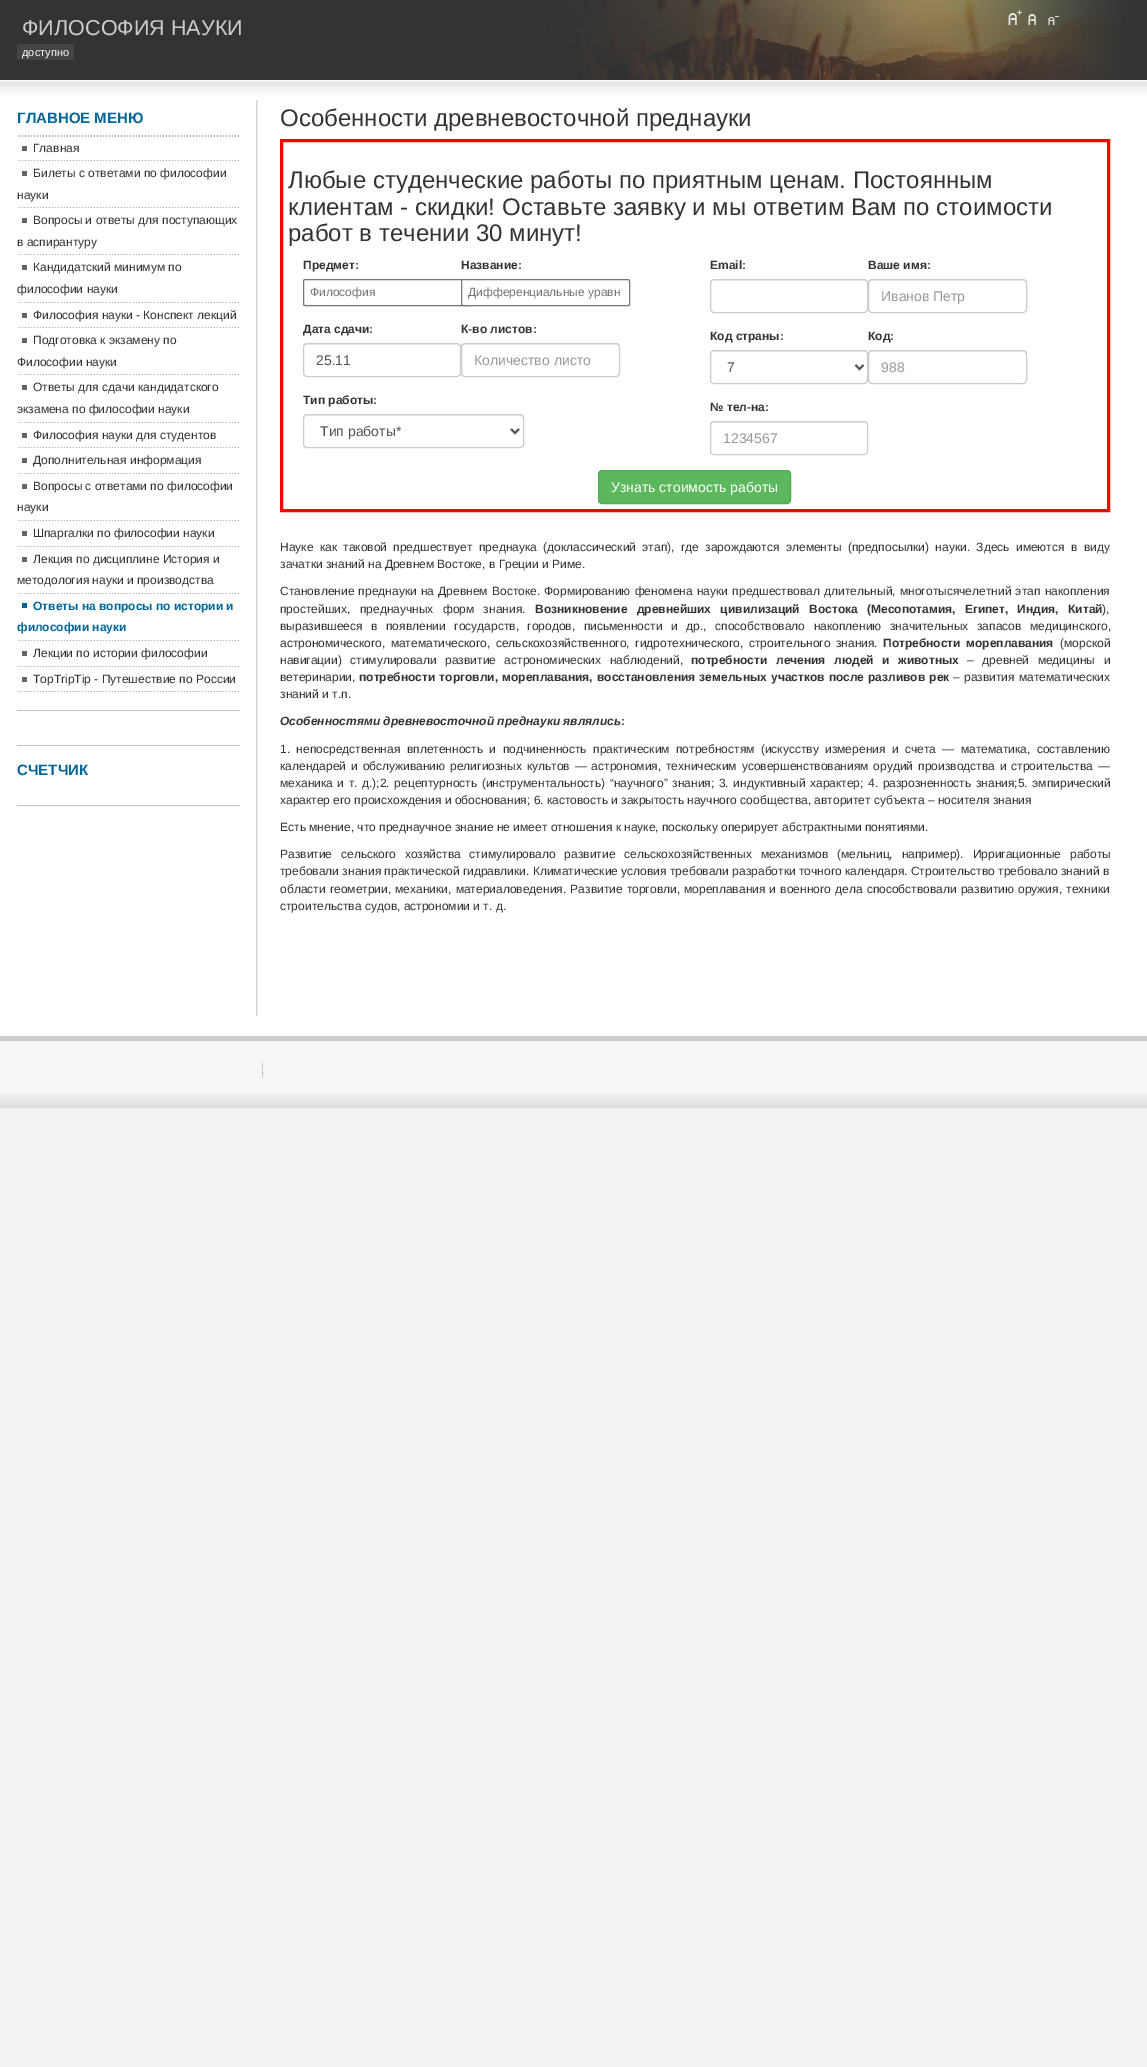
%!PS
<< /PageSize [1147 2067] >> setpagedevice
/mt/moveto load def
/li/lineto load def
/ct/curveto load def
/cp/closepath load def
/fl/fill load def
/st/stroke load def
/gs/gsave load def
/gr/grestore load def
/lw/setlinewidth load def
/co { dup -16 bitshift 255 div exch dup -8 bitshift 255 and 255 div exch 255 and 255 div setrgbcolor } def
/fn { [ exch dup neg 0 0 3 -1 roll 0 0 ] selectfont } def
/tx { co fn moveto show } def
/bx { co rectfill } def
/rr { 5 dict begin { /r /h /w /y /x } { exch def } forall
  x r add y moveto x w add y 2 copy h add r arct x w add y h add x 1 index r arct
  x y h add x y r arct x y 2 copy exch w add exch r arct closepath end } def
/im { 5 dict begin { /h /w /y /x /name } { exch def } forall
  gsave x y translate w h scale
  w h 8 [w 0 0 h 0 0] name (r) file false 3 colorimage grestore end } def
0 2067 translate 1 -1 scale
4 setmiterlimit
0 0 1147 2067 16#F2F2F2 bx
0 96 1147 940 16#FFFFFF bx
0 0 1147 80 16#333333 bx
(media/1.raw) 535 0 592 80 im
(media/2.raw) 530 0 600 80 im
(media/3.raw) 1008 10 14 15 im
(media/4.raw) 1028 14 8 11 im
(media/5.raw) 1048 16 11 9 im
17 44 57 16 16#444444 bx
(media/6.raw) 0 80 1147 16 im
(media/7.raw) 256 100 2 916 im
17 710 223 1 16#C0C0C0 bx
(media/8.raw) 18 135 221 2 im
(media/9.raw) 18 160 221 1 im
22 146 5 5 16#666666 bx
(media/9.raw) 18 207 221 1 im
22 171 5 5 16#666666 bx
(media/9.raw) 18 254 221 1 im
22 218 5 5 16#666666 bx
(media/9.raw) 18 302 221 1 im
22 265 5 5 16#666666 bx
(media/9.raw) 18 327 221 1 im
22 313 5 5 16#666666 bx
(media/9.raw) 18 374 221 1 im
22 338 5 5 16#666666 bx
(media/9.raw) 18 422 221 1 im
22 385 5 5 16#666666 bx
(media/9.raw) 18 447 221 1 im
22 433 5 5 16#666666 bx
(media/9.raw) 18 473 221 1 im
22 458 5 5 16#666666 bx
(media/9.raw) 18 520 221 1 im
22 484 5 5 16#666666 bx
(media/9.raw) 18 546 221 1 im
22 531 5 5 16#666666 bx
(media/9.raw) 18 593 221 1 im
22 557 5 5 16#666666 bx
(media/9.raw) 18 640 221 1 im
22 603 5 5 16#006699 bx
(media/9.raw) 18 666 221 1 im
22 651 5 5 16#666666 bx
(media/9.raw) 18 691 221 1 im
22 677 5 5 16#666666 bx
17 745 223 1 16#C0C0C0 bx
17 805 223 1 16#C0C0C0 bx
16#FF0000 co
3 lw
281.5 140.5 827 370 rectstroke
16#767676 co
1 lw
303.5 279.5 168 26 1.5 rr st
16#FFFFFF co
461.5 279.5 168 26 1.5 rr gs fl gr
16#767676 co
st
16#ECECEC co
307 345 mt 457 345 li 459 345 460 346 460 348 ct 460 346 459 344 457 344 ct 306 344 li 304 344 304 346 304 348 ct 304 346 305 345 307 345 ct cp fl
16#CCCCCC co
303.5 343.5 157 33 3.5 rr st
16#ECECEC co
465 345 mt 616 345 li 618 345 619 346 619 348 ct 619 346 618 344 616 344 ct 464 344 li 462 344 462 346 462 348 ct 462 346 463 345 465 345 ct cp fl
16#CCCCCC co
461.5 343.5 158 33 3.5 rr st
16#ECECEC co
307 416 mt 520 416 li 522 416 523 417 523 419 ct 523 418 li 523 416 522 415 520 415 ct 307 415 li 305 415 304 416 304 418 ct 304 419 li 304 417 305 416 307 416 ct cp fl
16#CCCCCC co
303.5 414.5 220 33 3.5 rr st
16#555555 co
2 lw
511 429 mt 515 433 li 519 429 li st
16#ECECEC co
714 281 mt 864 281 li 866 281 867 282 867 284 ct 867 282 866 280 864 280 ct 713 280 li 711 280 711 282 711 284 ct 711 282 712 281 714 281 ct cp fl
16#CCCCCC co
1 lw
710.5 279.5 157 33 3.5 rr st
16#ECECEC co
872 281 mt 1023 281 li 1025 281 1026 282 1026 284 ct 1026 282 1025 280 1023 280 ct 871 280 li 869 280 869 282 869 284 ct 869 282 870 281 872 281 ct cp fl
16#CCCCCC co
868.5 279.5 158 33 3.5 rr st
16#ECECEC co
714 352 mt 864 352 li 866 352 867 353 867 355 ct 867 353 866 351 864 351 ct 713 351 li 711 351 711 353 711 355 ct 711 353 712 352 714 352 ct cp fl
16#CCCCCC co
710.5 350.5 157 33 3.5 rr st
16#555555 co
2 lw
855.5 365 mt 859.5 369 li 863.5 365 li st
16#ECECEC co
872 352 mt 1023 352 li 1025 352 1026 353 1026 355 ct 1026 353 1025 351 1023 351 ct 871 351 li 869 351 869 353 869 355 ct 869 353 870 352 872 352 ct cp fl
16#CCCCCC co
1 lw
868.5 350.5 158 33 3.5 rr st
16#ECECEC co
714 423 mt 864 423 li 866 423 867 424 867 426 ct 867 424 866 422 864 422 ct 713 422 li 711 422 711 424 711 426 ct 711 424 712 423 714 423 ct cp fl
16#CCCCCC co
710.5 421.5 157 33 3.5 rr st
16#5CB85C co
598.5 470.5 192 33 3.5 rr gs fl gr
16#4CAE4C co
st
0 1041 1147 52 16#F6F6F6 bx
(media/10.raw) 0 1093 1147 15 im
0 1036 1147 5 16#CCCCCC bx
(media/11.raw) 262 1062 1 15 im
(ФИЛОСОФИЯ НАУКИ) 22 35 /LiberationSans-Regular 21.6 16#CCCCCC tx
(доступно) 22 56 /LiberationSans-Regular 11 16#FFFFFF tx
(ГЛАВНОЕ МЕНЮ) 17 123 /LiberationSans-Bold 15 16#006699 tx
(Главная) 33 152 /LiberationSans-Regular 12 16#333333 tx
(Билеты с ответами по философии) 33 177 /LiberationSans-Regular 12 16#333333 tx
(науки) 17 199 /LiberationSans-Regular 12 16#333333 tx
(Вопросы и ответы для поступающих) 33 224 /LiberationSans-Regular 12 16#333333 tx
(в аспирантуру) 17 246 /LiberationSans-Regular 12 16#333333 tx
(Кандидатский минимум по) 33 271 /LiberationSans-Regular 12 16#333333 tx
(философии науки) 17 293 /LiberationSans-Regular 12 16#333333 tx
(Философия науки - Конспект лекций) 33 319 /LiberationSans-Regular 12 16#333333 tx
(Подготовка к экзамену по) 33 344 /LiberationSans-Regular 12 16#333333 tx
(Философии науки) 17 366 /LiberationSans-Regular 12 16#333333 tx
(Ответы для сдачи кандидатского) 33 391 /LiberationSans-Regular 12 16#333333 tx
(экзамена по философии науки) 17 413 /LiberationSans-Regular 12 16#333333 tx
(Философия науки для студентов) 33 439 /LiberationSans-Regular 12 16#333333 tx
(Дополнительная информация) 33 464 /LiberationSans-Regular 12 16#333333 tx
(Вопросы с ответами по философии) 33 490 /LiberationSans-Regular 12 16#333333 tx
(науки) 17 511 /LiberationSans-Regular 12 16#333333 tx
(Шпаргалки по философии науки) 33 537 /LiberationSans-Regular 12 16#333333 tx
(Лекция по дисциплине История и) 33 563 /LiberationSans-Regular 12 16#333333 tx
(методология науки и производства) 17 584 /LiberationSans-Regular 12 16#333333 tx
(Ответы на вопросы по истории и) 33 610 /LiberationSans-Bold 12 16#006699 tx
(философии науки) 17 631 /LiberationSans-Bold 12 16#006699 tx
(Лекции по истории философии) 33 657 /LiberationSans-Regular 12 16#333333 tx
(TopTripTip - Путешествие по России) 33 683 /LiberationSans-Regular 12 16#333333 tx
(СЧЕТЧИК) 17 775 /LiberationSans-Bold 15 16#006699 tx
(Особенности древневосточной преднауки) 280 126 /LiberationSans-Regular 24 16#333333 tx
(Любые студенческие работы по приятным ценам. Постоянным) 288 188 /LiberationSans-Regular 24 16#333333 tx
(клиентам - скидки! Оставьте заявку и мы ответим Вам по стоимости) 288 215 /LiberationSans-Regular 24 16#333333 tx
(работ в течении 30 минут!) 288 241 /LiberationSans-Regular 24 16#333333 tx
(Предмет:) 303 269 /LiberationSans-Bold 12 16#333333 tx
(Философия) 310 296 /LiberationSans-Regular 12 16#757575 tx
(Название:) 461 269 /LiberationSans-Bold 12 16#333333 tx
(Дифференциальные уравн) 468 296 /LiberationSans-Regular 12 16#757575 tx
(Дата сдачи:) 303 333 /LiberationSans-Bold 12 16#333333 tx
(25.11) 316 365 /LiberationSans-Regular 14 16#555555 tx
(К-во листов:) 461 333 /LiberationSans-Bold 12 16#333333 tx
(Количество листо) 474 365 /LiberationSans-Regular 14 16#999999 tx
(Тип работы:) 303 404 /LiberationSans-Bold 12 16#333333 tx
(Тип работы*) 320 436 /LiberationSans-Regular 14 16#555555 tx
(Email:) 710 269 /LiberationSans-Bold 12 16#333333 tx
(Ваше имя:) 868 269 /LiberationSans-Bold 12 16#333333 tx
(Иванов Петр) 881 301 /LiberationSans-Regular 14 16#999999 tx
(Код страны:) 710 340 /LiberationSans-Bold 12 16#333333 tx
(7) 727 372 /LiberationSans-Regular 14 16#555555 tx
(Код:) 868 340 /LiberationSans-Bold 12 16#333333 tx
(988) 881 372 /LiberationSans-Regular 14 16#999999 tx
(№ тел-на:) 710 411 /LiberationSans-Bold 12 16#333333 tx
(1234567) 723 443 /LiberationSans-Regular 14 16#999999 tx
(Узнать стоимость работы) 611 492 /LiberationSans-Regular 14 16#FFFFFF tx
/LiberationSans-Regular 12 fn
16#333333 co
280 551 mt 3 0 32 (Науке как таковой предшествует преднаука \(доклассический этап\), где зарождаются элементы \(предпосылки\) науки. Здесь имеются в виду) widthshow
(зачатки знаний на Древнем Востоке, в Греции и Риме.) 280 568 /LiberationSans-Regular 12 16#333333 tx
280 595 mt .9 0 32 (Становление преднауки на Древнем Востоке. Формированию феномена науки предшествовал длительный, многотысячелетний этап накопления) widthshow
280 613 mt 6 0 32 (простейших, преднаучных форм знания.) widthshow
/LiberationSans-Bold 12 fn
535 613 mt 6 0 32 (Возникновение древнейших цивилизаций Востока \(Месопотамия, Египет, Индия, Китай) widthshow
(\),) 1102 613 /LiberationSans-Regular 12 16#333333 tx
280 630 mt 5.25 0 32 (выразившееся в появлении государств, городов, письменности и др., способствовало накоплению значительных запасов медицинского,) widthshow
280 647 mt 2.25 0 32 (астрономического, математического, сельскохозяйственного, гидротехнического, строительного знания.) widthshow
/LiberationSans-Bold 12 fn
883 647 mt 2 0 32 (Потребности мореплавания) widthshow
(\(морской) 1060 647 /LiberationSans-Regular 12 16#333333 tx
280 664 mt 5.25 0 32 (навигации\) стимулировали развитие астрономических наблюдений,) widthshow
/LiberationSans-Bold 12 fn
691 664 mt 5.25 0 32 (потребности лечения людей и животных) widthshow
/LiberationSans-Regular 12 fn
967 664 mt 5.25 0 32 (– древней медицины и) widthshow
(ветеринарии,) 280 681 /LiberationSans-Regular 12 16#333333 tx
/LiberationSans-Bold 12 fn
359 681 mt .75 0 32 (потребности торговли, мореплавания, восстановления земельных участков после разливов рек) widthshow
/LiberationSans-Regular 12 fn
953 681 mt 1 0 32 (– развития математических) widthshow
(знаний и т.п.) 280 698 /LiberationSans-Regular 12 16#333333 tx
(Особенностями древневосточной преднауки являлись) 280 725 /LiberationSans-BoldItalic 12 16#333333 tx
(:) 621 725 /LiberationSans-Bold 12 16#333333 tx
/LiberationSans-Regular 12 fn
280 753 mt 3.1 0 32 (1. непосредственная вплетенность и подчиненность практическим потребностям \(искусству измерения и счета — математика, составлению) widthshow
280 770 mt 1.6 0 32 (календарей и обслуживанию религиозных культов — астрономия, техническим усовершенствованиям орудий производства и строительства —) widthshow
280 787 mt 1.25 0 32 (механика и т. д.\);2. рецептурность \(инструментальность\) “научного” знания; 3. индуктивный характер; 4. разрозненность знания;5. эмпирический) widthshow
(характер его происхождения и обоснования; 6. кастовость и закрытость научного сообщества, авторитет субъекта – носителя знания) 280 804 /LiberationSans-Regular 12 16#333333 tx
(Есть мнение, что преднаучное знание не имеет отношения к науке, поскольку оперирует абстрактными понятиями.) 280 831 /LiberationSans-Regular 12 16#333333 tx
280 858 mt 5.5 0 32 (Развитие сельского хозяйства стимулировало развитие сельскохозяйственных механизмов \(мельниц, например\). Ирригационные работы) widthshow
(требовали знания практической гидравлики. Климатические условия требовали разработки точного календаря. Строительство требовало знаний в) 280 875 /LiberationSans-Regular 12 16#333333 tx
280 893 mt .8 0 32 (области геометрии, механики, материаловедения. Развитие торговли, мореплавания и военного дела способствовали развитию оружия, техники) widthshow
(строительства судов, астрономии и т. д.) 280 910 /LiberationSans-Regular 12 16#333333 tx
showpage
